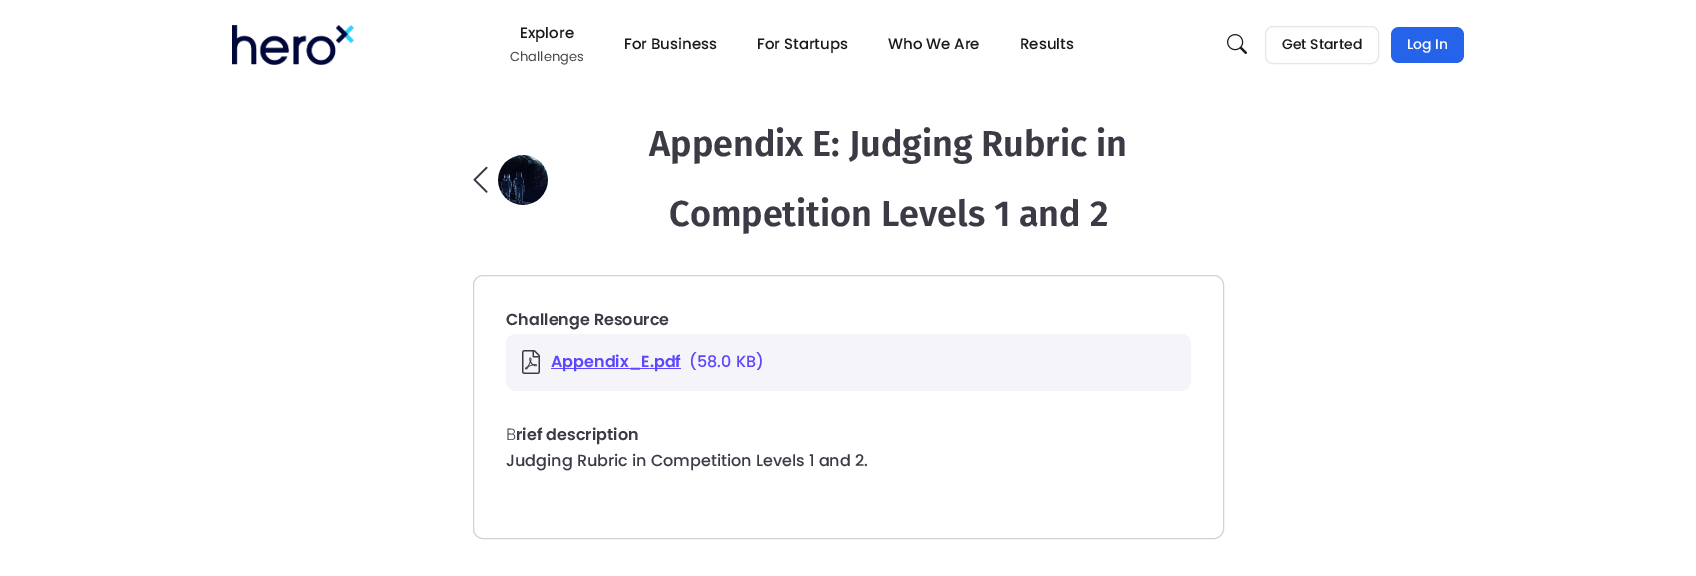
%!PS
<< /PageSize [1696 576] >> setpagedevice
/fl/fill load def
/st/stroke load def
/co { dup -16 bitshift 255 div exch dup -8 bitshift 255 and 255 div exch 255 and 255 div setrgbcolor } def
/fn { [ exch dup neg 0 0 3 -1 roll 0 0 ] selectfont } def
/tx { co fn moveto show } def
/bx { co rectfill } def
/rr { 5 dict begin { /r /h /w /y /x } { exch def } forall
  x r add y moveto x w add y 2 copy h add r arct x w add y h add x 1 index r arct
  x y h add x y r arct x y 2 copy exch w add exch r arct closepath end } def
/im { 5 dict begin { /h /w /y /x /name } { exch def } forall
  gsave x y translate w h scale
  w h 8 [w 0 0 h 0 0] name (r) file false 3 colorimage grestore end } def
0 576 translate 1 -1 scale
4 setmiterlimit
0 0 1696 576 16#FFFFFF bx
(media/1.raw) 232 25 122 40 im
(media/2.raw) 1227 34 20 20 im
16#E6E6E6 co
1265.5 26.5 113 37 7.5 rr st
16#2563EB co
1391 27 73 36 8 rr fl
(media/3.raw) 473 166 15 27 im
(media/4.raw) 498 155 50 50 im
16#D2D2D2 co
473.5 275.5 750 263 9.5 rr st
16#F4F4F9 co
506 334 685 57 10 rr fl
(media/5.raw) 522 350 18 24 im
551 368 130 1 16#5C47FF bx
(Explore) 520 38 /Poppins-Medium 15 16#1A1A1A tx
(Challenges) 510 61 /Poppins-Regular 13 16#484848 tx
(For Business) 624 49 /Poppins-Medium 15 16#1A1A1A tx
(For Startups) 757 49 /Poppins-Medium 15 16#1A1A1A tx
(Who We Are) 888 49 /Poppins-Medium 15 16#1A1A1A tx
(Results) 1020 49 /Poppins-Medium 15 16#1A1A1A tx
(Get Started) 1282 49 /Poppins-Medium 14 16#1A1A1A tx
(Log In) 1407 49 /Poppins-Medium 14 16#FFFFFF tx
(Appendix E: Judging Rubric in) 649 156 /FiraSans-SemiBold 36 16#3D3A46 tx
(Competition Levels 1 and 2) 669 226 /FiraSans-SemiBold 36 16#3D3A46 tx
(Challenge Resource) 506 325 /Poppins-SemiBold 16 16#3D3A46 tx
(Appendix_E.pdf) 551 367 /Poppins-SemiBold 16 16#5C47FF tx
(\(58.0 KB\)) 689 367 /Poppins-Medium 16 16#5C47FF tx
(B) 506 440 /NotoSans-Light 16 16#3D3A46 tx
(rief description) 516 440 /Poppins-SemiBold 16 16#3D3A46 tx
(Judging Rubric in Competition Levels 1 and 2.) 506 466 /Poppins-Medium 16 16#3D3A46 tx
showpage
